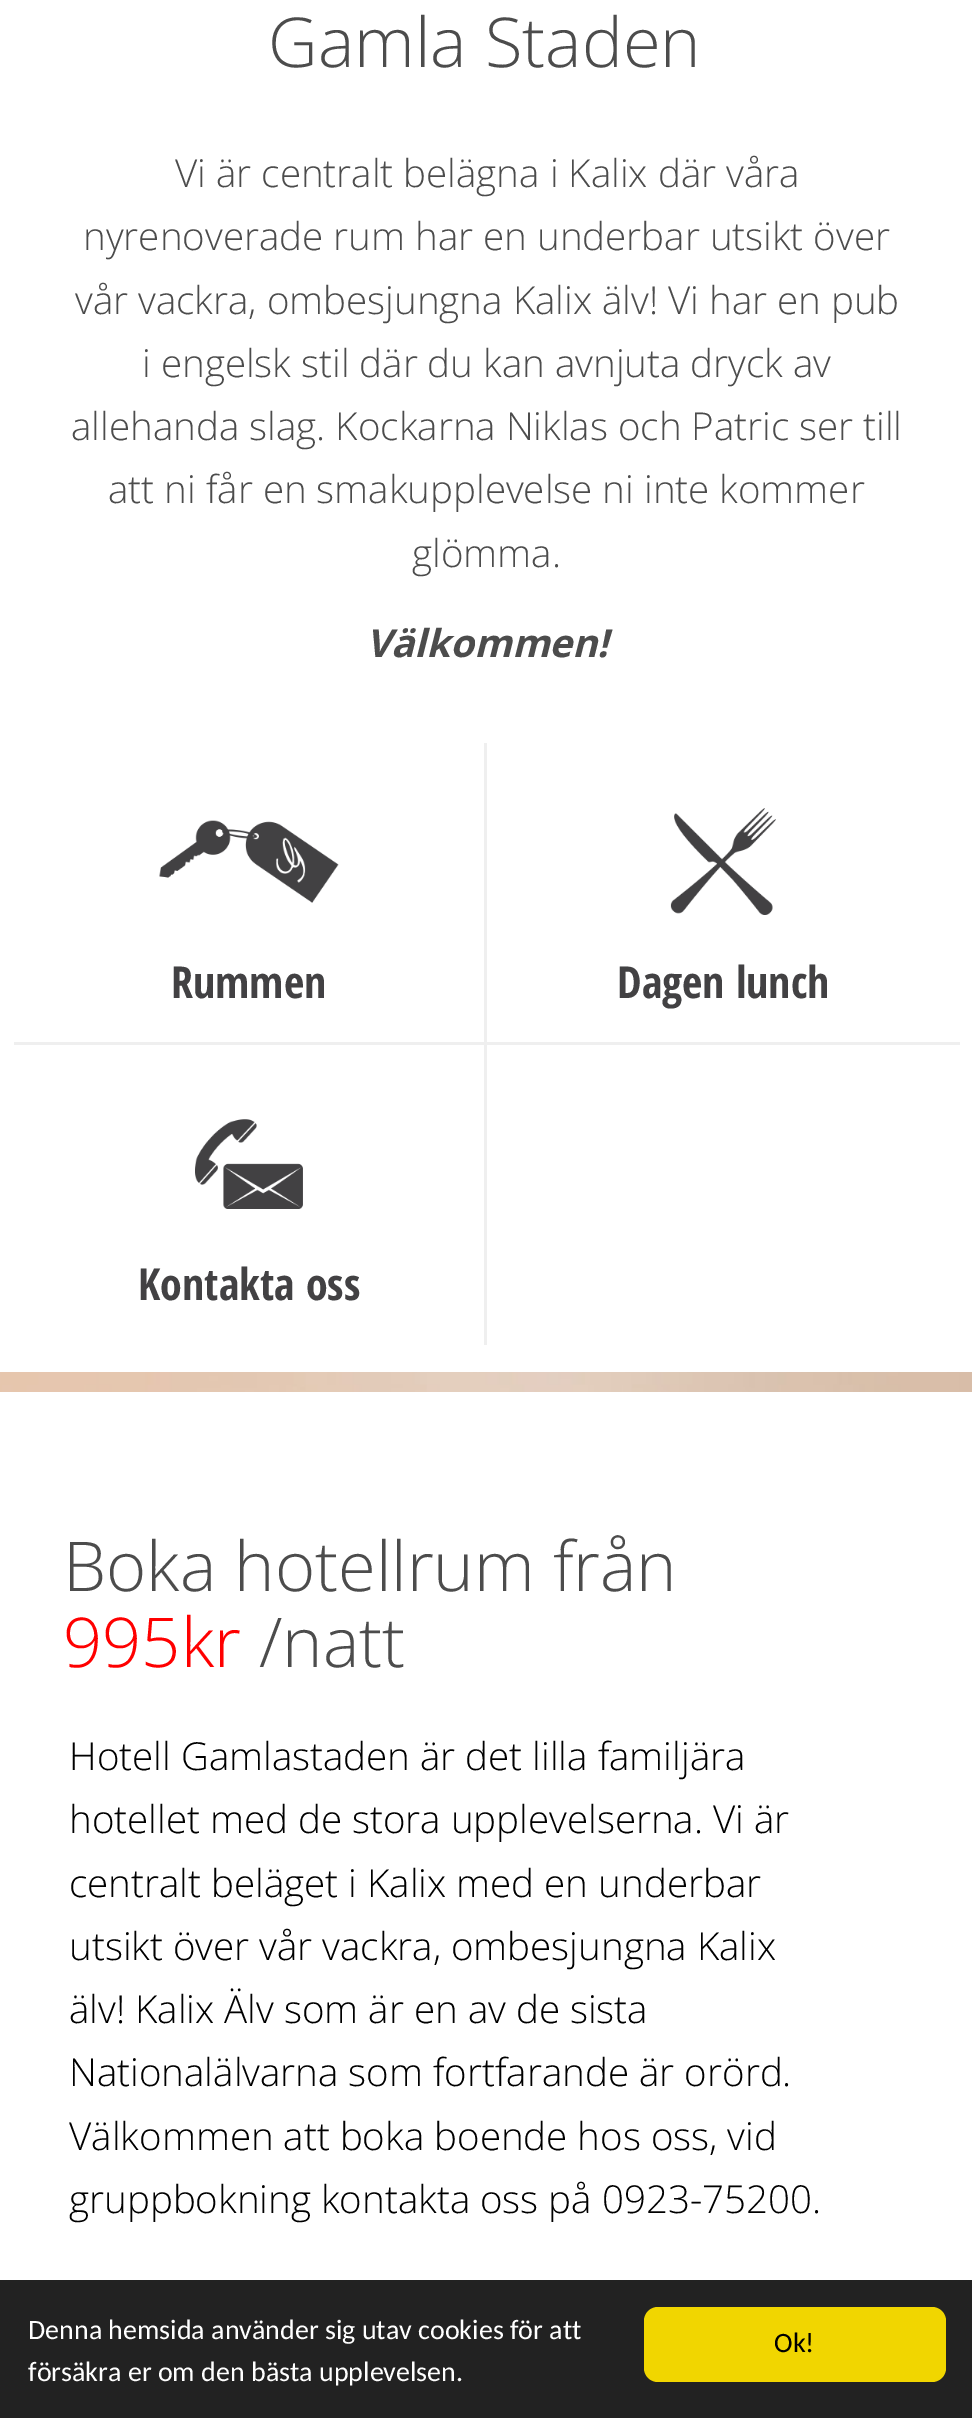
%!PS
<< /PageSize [972 2418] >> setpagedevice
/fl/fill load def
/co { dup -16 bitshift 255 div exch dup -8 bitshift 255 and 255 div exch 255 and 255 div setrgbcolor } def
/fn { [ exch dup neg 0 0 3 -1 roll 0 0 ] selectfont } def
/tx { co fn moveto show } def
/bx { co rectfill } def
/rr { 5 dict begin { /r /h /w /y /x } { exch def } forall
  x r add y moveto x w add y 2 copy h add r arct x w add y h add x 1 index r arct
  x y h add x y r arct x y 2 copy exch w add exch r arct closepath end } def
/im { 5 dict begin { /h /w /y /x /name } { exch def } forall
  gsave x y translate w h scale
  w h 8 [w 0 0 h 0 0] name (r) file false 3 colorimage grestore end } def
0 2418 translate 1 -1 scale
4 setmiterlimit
0 0 972 2418 16#FFFFFF bx
(media/1.raw) 0 1372 972 20 im
484 743 3 602 16#EFEFEF bx
14 1042 946 3 16#EFEFEF bx
(media/2.raw) 159 820 180 83 im
(media/3.raw) 670 808 106 107 im
(media/4.raw) 195 1119 108 90 im
0 2280 972 138 16#222222 bx
16#F1D600 co
644 2307 302 75 14 rr fl
(Gamla Staden) 268 67 /OpenSans-Light 68.75 16#4C4C4C tx
(Vi är centralt belägna i Kalix där våra) 175 187 /OpenSans-Light 38.5 16#4C4C4C tx
(nyrenoverade rum har en underbar utsikt över) 83 250 /OpenSans-Light 38.5 16#4C4C4C tx
(vår vackra, ombesjungna Kalix älv! Vi har en pub) 75 314 /OpenSans-Light 38.5 16#4C4C4C tx
(i engelsk stil där du kan avnjuta dryck av) 142 377 /OpenSans-Light 38.5 16#4C4C4C tx
(allehanda slag. Kockarna Niklas och Patric ser till) 71 440 /OpenSans-Light 38.5 16#4C4C4C tx
(att ni får en smakupplevelse ni inte kommer) 108 503 /OpenSans-Light 38.5 16#4C4C4C tx
(glömma.) 412 567 /OpenSans-Light 38.5 16#4C4C4C tx
(Välkommen!) 366 657 /OpenSans-BoldItalic 38.5 16#4C4C4C tx
(Rummen) 171 998 /OpenSansCondensed-Bold 44 16#424143 tx
(Dagen lunch) 617 998 /OpenSansCondensed-Bold 44 16#424143 tx
(Kontakta oss) 138 1300 /OpenSansCondensed-Bold 44 16#424143 tx
(Boka hotellrum från) 63 1591 /OpenSans-Light 68.75 16#4C4C4C tx
(995kr) 63 1667 /OpenSans-Light 68.75 16#FF0000 tx
(/natt) 259 1667 /OpenSans-Light 68.75 16#4C4C4C tx
(Hotell Gamlastaden är det lilla familjära) 69 1770 /OpenSans-Light 38.5 16#000000 tx
(hotellet med de stora upplevelserna. Vi är) 69 1833 /OpenSans-Light 38.5 16#000000 tx
(centralt beläget i Kalix med en underbar) 69 1897 /OpenSans-Light 38.5 16#000000 tx
(utsikt över vår vackra, ombesjungna Kalix) 69 1960 /OpenSans-Light 38.5 16#000000 tx
(älv! Kalix Älv som är en av de sista) 69 2023 /OpenSans-Light 38.5 16#000000 tx
(Nationalälvarna som fortfarande är orörd.) 69 2086 /OpenSans-Light 38.5 16#000000 tx
(Välkommen att boka boende hos oss, vid) 69 2150 /OpenSans-Light 38.5 16#000000 tx
(gruppbokning kontakta oss på 0923-75200.) 69 2213 /OpenSans-Light 38.5 16#000000 tx
(Denna hemsida använder sig utav cookies för att) 28 2339 /Carlito-Regular 28 16#FFFFFF tx
(försäkra er om den bästa upplevelsen.) 28 2381 /Carlito-Regular 28 16#FFFFFF tx
(Ok!) 774 2352 /Carlito-Regular 28 16#000000 tx
showpage
